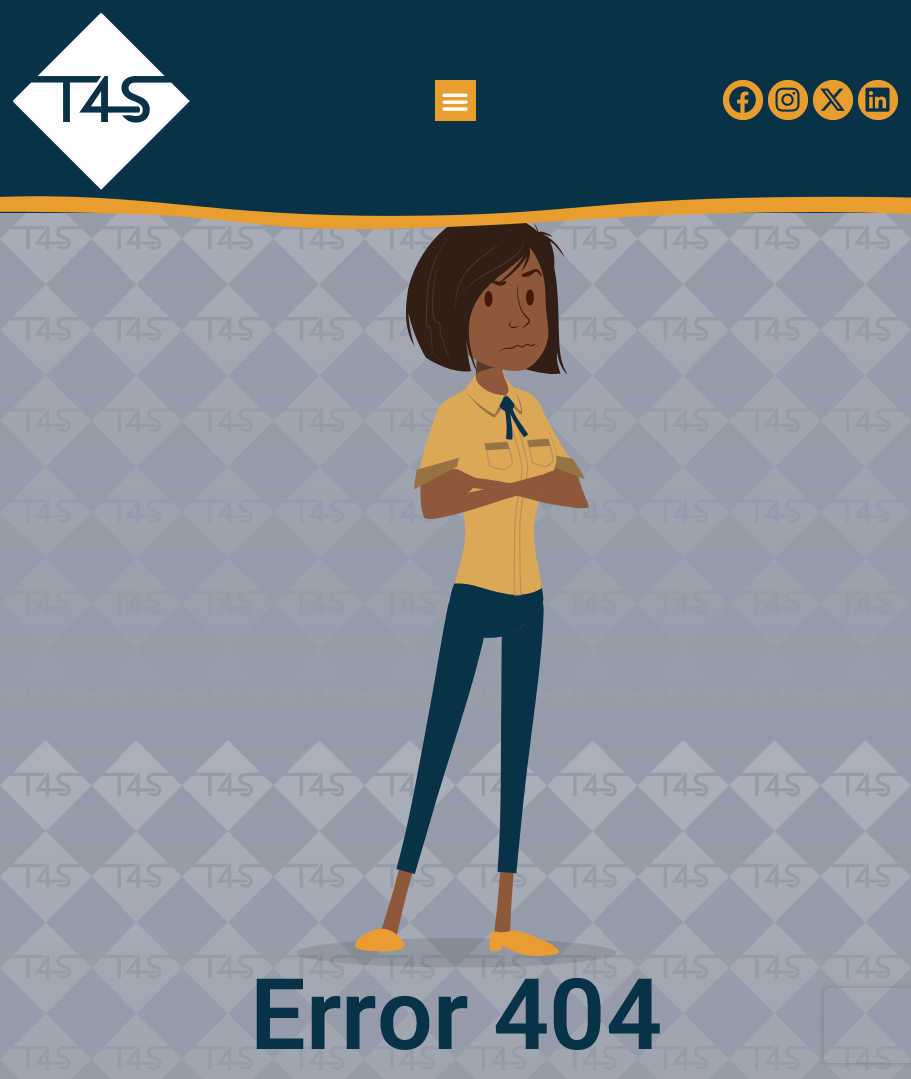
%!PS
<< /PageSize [911 1079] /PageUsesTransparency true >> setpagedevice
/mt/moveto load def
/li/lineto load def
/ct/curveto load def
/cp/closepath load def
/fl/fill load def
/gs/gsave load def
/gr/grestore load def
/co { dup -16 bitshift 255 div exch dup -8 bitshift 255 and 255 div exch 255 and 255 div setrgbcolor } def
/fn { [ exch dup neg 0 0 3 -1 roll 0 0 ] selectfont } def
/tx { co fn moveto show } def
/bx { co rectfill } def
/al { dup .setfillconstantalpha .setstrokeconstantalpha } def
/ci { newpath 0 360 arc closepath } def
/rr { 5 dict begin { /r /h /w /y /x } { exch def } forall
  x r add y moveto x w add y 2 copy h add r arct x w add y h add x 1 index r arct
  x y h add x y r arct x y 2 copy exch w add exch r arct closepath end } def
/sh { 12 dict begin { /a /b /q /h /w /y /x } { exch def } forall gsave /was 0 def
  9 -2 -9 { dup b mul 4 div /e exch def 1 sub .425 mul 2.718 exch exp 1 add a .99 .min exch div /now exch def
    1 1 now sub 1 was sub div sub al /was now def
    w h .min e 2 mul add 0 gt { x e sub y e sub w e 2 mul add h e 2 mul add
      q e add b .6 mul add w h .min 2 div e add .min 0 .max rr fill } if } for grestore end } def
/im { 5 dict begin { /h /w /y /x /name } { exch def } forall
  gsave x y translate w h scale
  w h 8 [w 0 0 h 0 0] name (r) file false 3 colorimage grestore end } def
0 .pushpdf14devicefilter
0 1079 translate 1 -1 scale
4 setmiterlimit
0 0 911 1079 16#FFFFFF bx
0 0 911 213 16#083248 bx
(media/1.raw) 13 13 177 177 im
435 80 41 41 16#E89D2F bx
(media/2.raw) 442 93 26 18 im
743 100 20 ci fl
(media/3.raw) 729 86 27 27 im
788 100 20 ci fl
(media/4.raw) 775 87 25 25 im
833 100 20 ci fl
(media/5.raw) 820 88 25 23 im
878 100 20 ci fl
(media/6.raw) 865 87 25 25 im
(media/8.raw) 0 213 911 866 im
(media/9.raw) 296 223 320 745 im
(media/7.raw) 0 196 911 34 im
gs
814 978 mt 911 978 li 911 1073 li 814 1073 li cp 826.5 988 mt 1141.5 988 li 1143 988 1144 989 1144 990.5 ct 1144 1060.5 li 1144 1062 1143 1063 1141.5 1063 ct 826.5 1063 li 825 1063 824 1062 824 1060.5 ct 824 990.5 li 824 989 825 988 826.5 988 ct cp eoclip newpath
16#808080 co
824 988 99 75 2.5 3 1 sh
gr
(Error 404) 250 1049 /Roboto-SemiBold 98.75 16#083248 tx
.poppdf14devicefilter showpage
